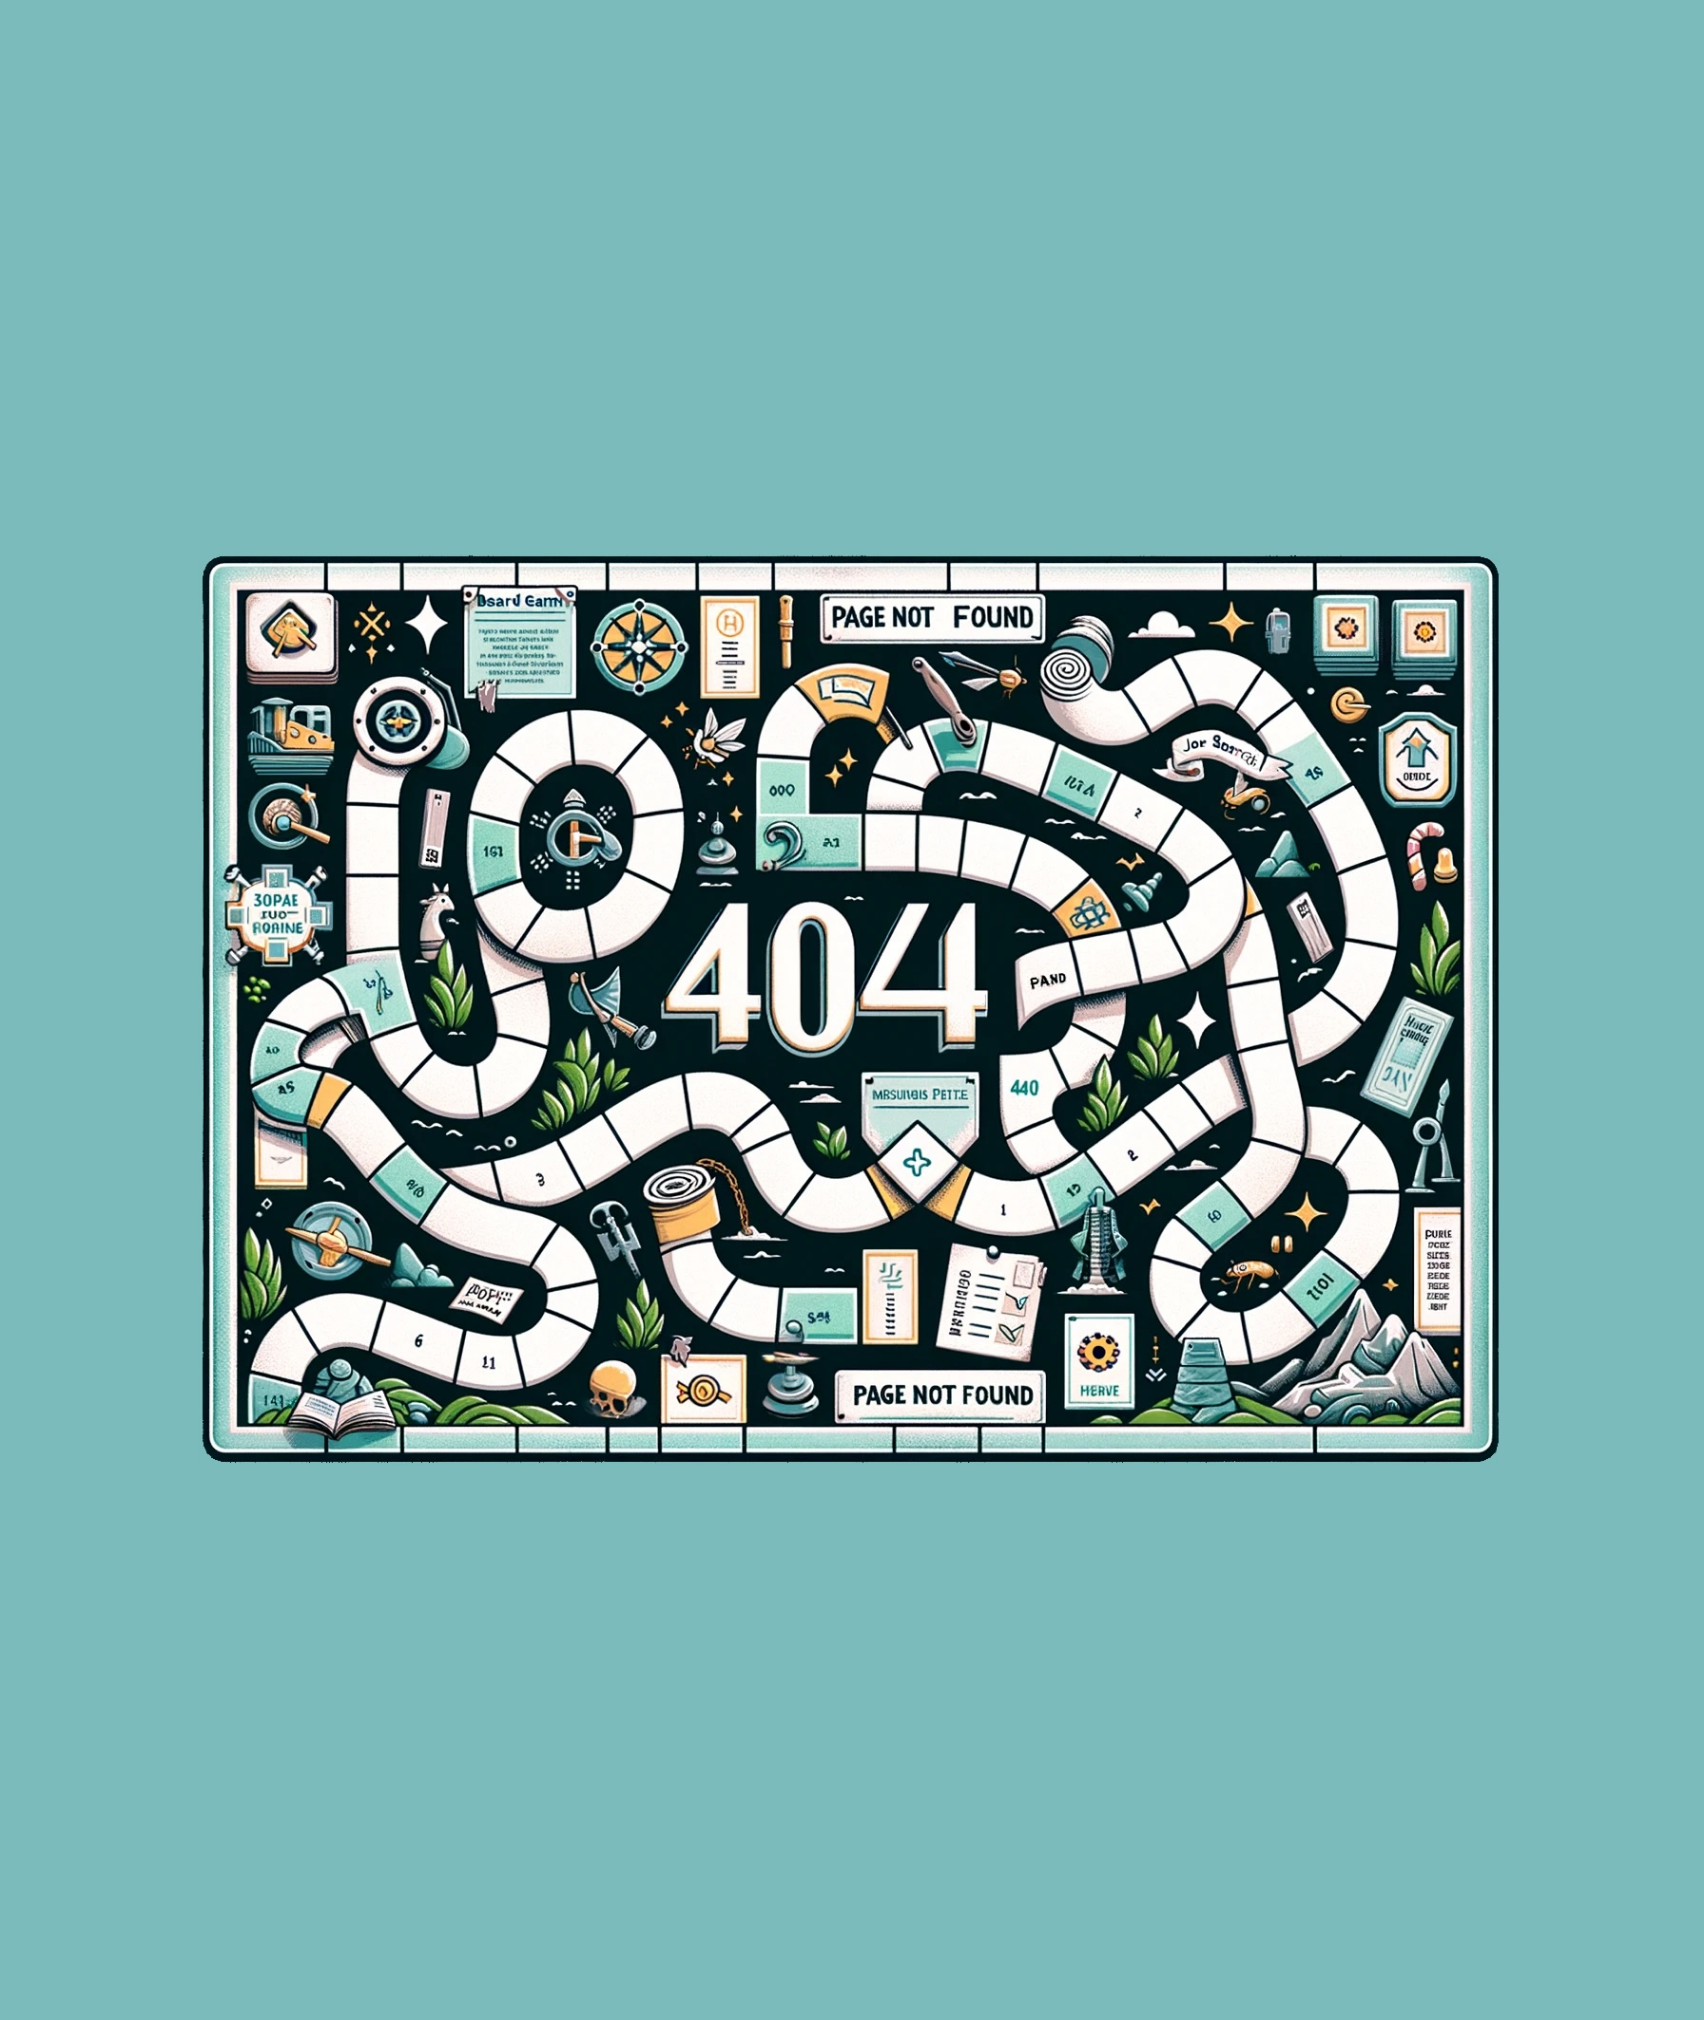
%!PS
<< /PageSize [1704 2020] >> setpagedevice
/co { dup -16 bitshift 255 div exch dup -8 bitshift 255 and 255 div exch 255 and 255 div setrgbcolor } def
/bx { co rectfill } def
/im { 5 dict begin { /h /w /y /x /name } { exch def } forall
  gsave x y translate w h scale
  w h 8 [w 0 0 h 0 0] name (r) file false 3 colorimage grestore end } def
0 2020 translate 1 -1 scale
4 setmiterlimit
0 0 1704 2020 16#7BBBBB bx
(media/1.raw) 198 554 1302 911 im
showpage
